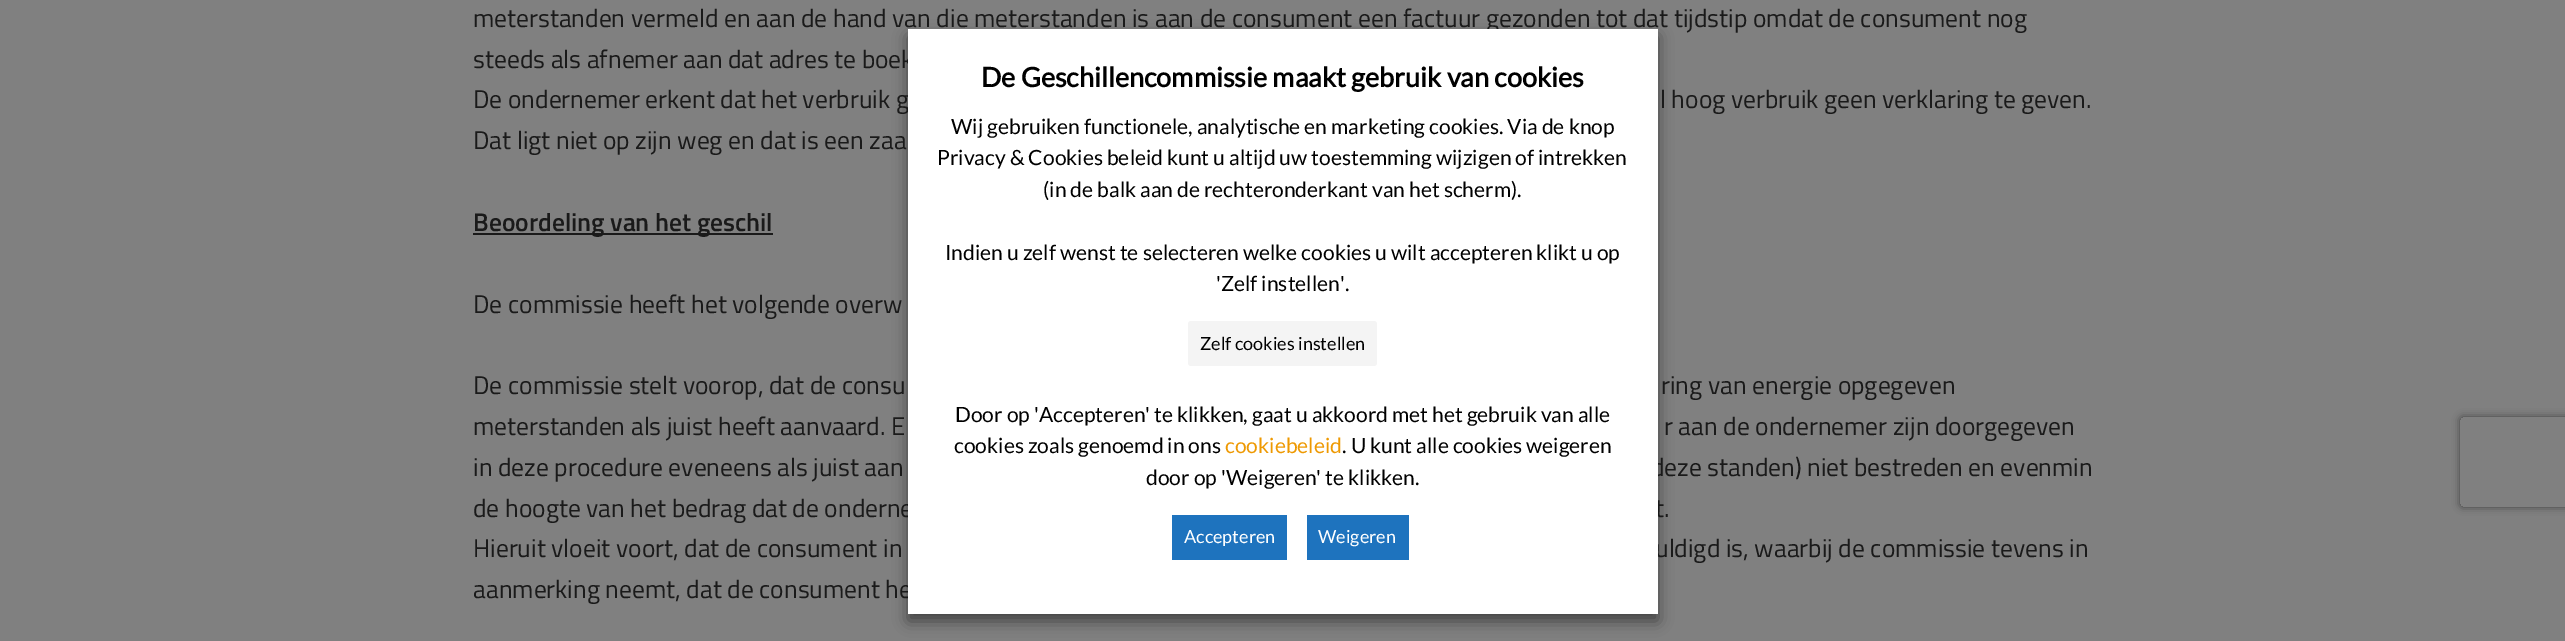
%!PS
<< /PageSize [2565 641] /PageUsesTransparency true >> setpagedevice
/mt/moveto load def
/li/lineto load def
/ct/curveto load def
/cp/closepath load def
/fl/fill load def
/gs/gsave load def
/gr/grestore load def
/co { dup -16 bitshift 255 div exch dup -8 bitshift 255 and 255 div exch 255 and 255 div setrgbcolor } def
/fn { [ exch dup neg 0 0 3 -1 roll 0 0 ] selectfont } def
/tx { co fn moveto show } def
/bx { co rectfill } def
/al { dup .setfillconstantalpha .setstrokeconstantalpha } def
/rr { 5 dict begin { /r /h /w /y /x } { exch def } forall
  x r add y moveto x w add y 2 copy h add r arct x w add y h add x 1 index r arct
  x y h add x y r arct x y 2 copy exch w add exch r arct closepath end } def
/sh { 12 dict begin { /a /b /q /h /w /y /x } { exch def } forall gsave /was 0 def
  9 -2 -9 { dup b mul 4 div /e exch def 1 sub .425 mul 2.718 exch exp 1 add a .99 .min exch div /now exch def
    1 1 now sub 1 was sub div sub al /was now def
    w h .min e 2 mul add 0 gt { x e sub y e sub w e 2 mul add h e 2 mul add
      q e add b .6 mul add w h .min 2 div e add .min 0 .max rr fill } if } for grestore end } def
0 .pushpdf14devicefilter
0 641 translate 1 -1 scale
4 setmiterlimit
0 0 2565 641 16#808080 bx
473 233 300 2 16#1A1A1A bx
16#000000 co
908 36 750 585 0 7.5 .5 sh
gs
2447 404 mt 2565 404 li 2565 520 li 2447 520 li cp 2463 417 mt 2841 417 li 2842.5 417 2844 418.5 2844 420 ct 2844 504 li 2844 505.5 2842.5 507 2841 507 ct 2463 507 li 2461.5 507 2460 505.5 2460 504 ct 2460 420 li 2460 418.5 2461.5 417 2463 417 ct cp eoclip newpath
16#404040 co
2460 417 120 90 3 4 1 sh
gr
(meterstanden vermeld en aan de hand van die meterstanden is aan de consument een factuur gezonden tot dat tijdstip omdat de consument nog) 473 27 /TitilliumWeb-Regular 25.5 16#1A1A1A tx
(steeds als afnemer aan dat adres te boek) 473 68 /TitilliumWeb-Regular 25.5 16#1A1A1A tx
(De ondernemer erkent dat het verbruik g) 473 108 /TitilliumWeb-Regular 25.5 16#1A1A1A tx
(l hoog verbruik geen verklaring te geven.) 1660 108 /TitilliumWeb-Regular 25.5 16#1A1A1A tx
(Dat ligt niet op zijn weg en dat is een zaa) 473 149 /TitilliumWeb-Regular 25.5 16#1A1A1A tx
(Beoordeling van het geschil) 473 231 /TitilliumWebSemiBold-SemiBold 25.5 16#1A1A1A tx
(De commissie heeft het volgende overw) 473 313 /TitilliumWeb-Regular 25.5 16#1A1A1A tx
(De commissie stelt voorop, dat de consu) 473 394 /TitilliumWeb-Regular 25.5 16#1A1A1A tx
(ring van energie opgegeven) 1661 394 /TitilliumWeb-Regular 25.5 16#1A1A1A tx
(meterstanden als juist heeft aanvaard. E) 473 435 /TitilliumWeb-Regular 25.5 16#1A1A1A tx
(r aan de ondernemer zijn doorgegeven) 1664 435 /TitilliumWeb-Regular 25.5 16#1A1A1A tx
(in deze procedure eveneens als juist aan) 473 476 /TitilliumWeb-Regular 25.5 16#1A1A1A tx
(deze standen\) niet bestreden en evenmin) 1651 476 /TitilliumWeb-Regular 25.5 16#1A1A1A tx
(de hoogte van het bedrag dat de onderne) 473 517 /TitilliumWeb-Regular 25.5 16#1A1A1A tx
(t.) 1655 517 /TitilliumWeb-Regular 25.5 16#1A1A1A tx
(Hieruit vloeit voort, dat de consument in) 473 557 /TitilliumWeb-Regular 25.5 16#1A1A1A tx
(uldigd is, waarbij de commissie tevens in) 1655 557 /TitilliumWeb-Regular 25.5 16#1A1A1A tx
(aanmerking neemt, dat de consument he) 473 598 /TitilliumWeb-Regular 25.5 16#1A1A1A tx
908 29 750 585 16#FFFFFF bx
(De Geschillencommissie maakt gebruik van cookies) 981 87 /Lato-Bold 27 16#000000 tx
(Wij gebruiken functionele, analytische en marketing cookies. Via de knop) 951 134 /Lato-Regular 21 16#000000 tx
(Privacy & Cookies beleid kunt u altijd uw toestemming wijzigen of intrekken) 937 165 /Lato-Regular 21 16#000000 tx
(\(in de balk aan de rechteronderkant van het scherm\).) 1043 197 /Lato-Regular 21 16#000000 tx
(Indien u zelf wenst te selecteren welke cookies u wilt accepteren klikt u op) 945 260 /Lato-Regular 21 16#000000 tx
('Zelf instellen'.) 1216 291 /Lato-Regular 21 16#000000 tx
16#F4F4F4 co
1188 321 189 45 3 rr fl
(Zelf cookies instellen) 1200 350 /Lato-Regular 18 16#000000 tx
(Door op 'Accepteren' te klikken, gaat u akkoord met het gebruik van alle) 955 422 /Lato-Regular 21 16#000000 tx
(cookies zoals genoemd in ons) 954 453 /Lato-Regular 21 16#000000 tx
(cookiebeleid) 1225 453 /Lato-Regular 21 16#EE9902 tx
(. U kunt alle cookies weigeren) 1342 453 /Lato-Regular 21 16#000000 tx
(door op 'Weigeren' te klikken.) 1146 485 /Lato-Regular 21 16#000000 tx
1172 515 115 45 16#1E73BE bx
(Accepteren) 1184 543 /Lato-Regular 18 16#FFFFFF tx
1307 515 102 45 16#1E73BE bx
(Weigeren) 1318 543 /Lato-Regular 18 16#FFFFFF tx
.poppdf14devicefilter showpage
